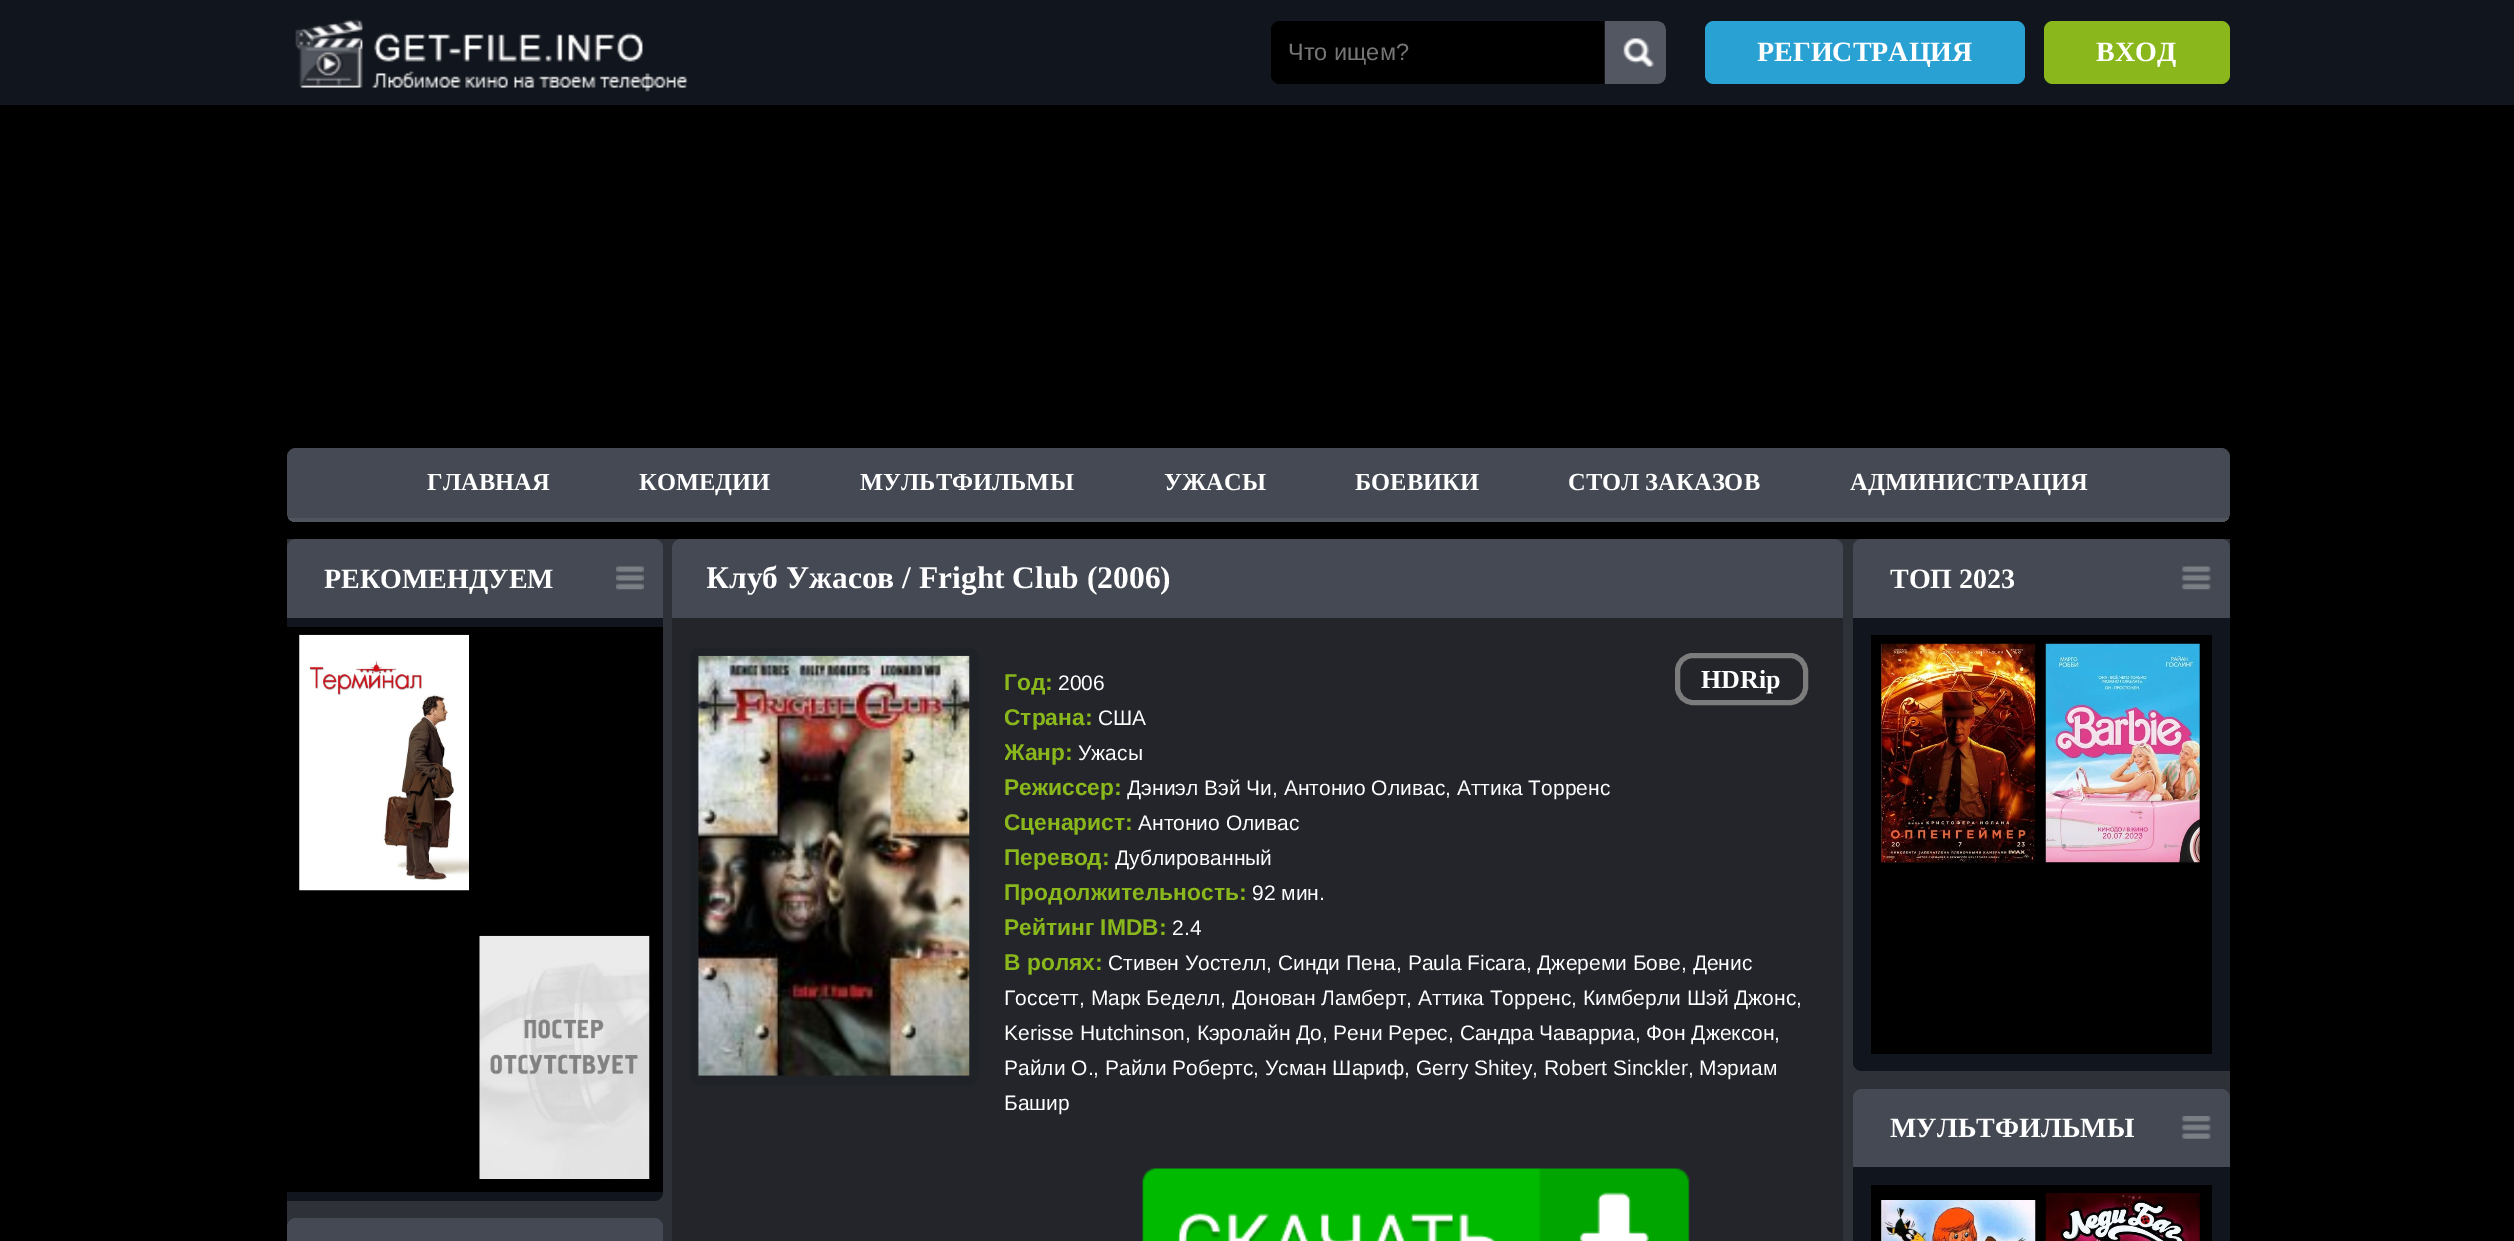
%!PS
<< /PageSize [2514 1241] >> setpagedevice
/mt/moveto load def
/li/lineto load def
/ct/curveto load def
/cp/closepath load def
/fl/fill load def
/st/stroke load def
/gs/gsave load def
/gr/grestore load def
/lw/setlinewidth load def
/co { dup -16 bitshift 255 div exch dup -8 bitshift 255 and 255 div exch 255 and 255 div setrgbcolor } def
/fn { [ exch dup neg 0 0 3 -1 roll 0 0 ] selectfont } def
/tx { co fn moveto show } def
/bx { co rectfill } def
/rr { 5 dict begin { /r /h /w /y /x } { exch def } forall
  x r add y moveto x w add y 2 copy h add r arct x w add y h add x 1 index r arct
  x y h add x y r arct x y 2 copy exch w add exch r arct closepath end } def
/im { 5 dict begin { /h /w /y /x /name } { exch def } forall
  gsave x y translate w h scale
  w h 8 [w 0 0 h 0 0] name (r) file false 3 colorimage grestore end } def
0 1241 translate 1 -1 scale
4 setmiterlimit
0 0 2514 1241 16#000000 bx
0 0 2514 105 16#11151D bx
(media/1.raw) 295 19 393 73 im
16#000000 co
1271 21 395 63 9 rr fl
(media/2.raw) 1604 21 62 63 im
16#2AA1D3 co
1705 21 320 63 9 rr fl
16#8AB71B co
2044 21 186 63 9 rr fl
16#444953 co
287 448 1943 74 9 rr fl
gs
287 448 1943 74 9 rr clip newpath
287 518 1943 4 16#4F545D bx
gr
287 539 1943 702 16#2E3138 bx
16#444953 co
296 539 mt 654 539 li 659 539 663 543 663 548 ct 663 618 li 287 618 li 287 548 li 287 543 291 539 296 539 ct cp fl
(media/3.raw) 616 566 28 24 im
16#11151D co
287 618 mt 663 618 li 663 1192 li 663 1197 659 1201 654 1201 ct 287 1201 li cp fl
287 627 376 565 16#000000 bx
(media/4.raw) 299 634 170 257 im
(media/5.raw) 479 935 171 244 im
16#444953 co
296 1218 mt 654 1218 li 659 1218 663 1222 663 1227 ct 663 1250 li 287 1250 li 287 1227 li 287 1222 291 1218 296 1218 ct cp fl
16#23252B co
672 539 1171 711 9 rr fl
16#444953 co
681 539 mt 1834 539 li 1839 539 1843 543 1843 548 ct 1843 618 li 672 618 li 672 548 li 672 543 676 539 681 539 ct cp fl
16#7C7C7C co
5 lw
1677.5 655.5 128 47 15.5 rr st
16#1F2227 co
9 lw
694.5 652.5 279 428 4.5 rr st
(media/6.raw) 698 655 272 421 im
(media/7.raw) 1142 1168 548 73 im
16#444953 co
1862 539 mt 2221 539 li 2226 539 2230 543 2230 548 ct 2230 618 li 1853 618 li 1853 548 li 1853 543 1857 539 1862 539 ct cp fl
(media/8.raw) 2182 566 29 24 im
16#11151D co
1853 618 mt 2230 618 li 2230 1071 li 1862 1071 li 1857 1071 1853 1067 1853 1062 ct cp fl
1871 635 341 419 16#000000 bx
(media/9.raw) 1881 643 155 220 im
(media/10.raw) 2045 643 155 220 im
16#444953 co
1862 1089 mt 2221 1089 li 2226 1089 2230 1093 2230 1098 ct 2230 1167 li 1853 1167 li 1853 1098 li 1853 1093 1857 1089 1862 1089 ct cp fl
(media/11.raw) 2182 1116 29 23 im
1853 1167 377 74 16#11151D bx
1871 1185 341 56 16#000000 bx
(media/12.raw) 1881 1200 155 41 im
(media/13.raw) 2045 1193 155 48 im
(Что ищем?) 1288 60 /LiberationSans-Regular 23.5 16#757575 tx
(РЕГИСТРАЦИЯ) 1757 61 /LiberationSerif-Bold 28 16#FFFFFF tx
(ВХОД) 2096 61 /LiberationSerif-Bold 28 16#FFFFFF tx
(ГЛАВНАЯ) 427 490 /LiberationSerif-Bold 24.5 16#FFFFFF tx
(КОМЕДИИ) 639 490 /LiberationSerif-Bold 24.5 16#FFFFFF tx
(МУЛЬТФИЛЬМЫ) 860 490 /LiberationSerif-Bold 24.5 16#FFFFFF tx
(УЖАСЫ) 1164 490 /LiberationSerif-Bold 24.5 16#FFFFFF tx
(БОЕВИКИ) 1355 490 /LiberationSerif-Bold 24.5 16#FFFFFF tx
(СТОЛ ЗАКАЗОВ) 1568 490 /LiberationSerif-Bold 24.5 16#FFFFFF tx
(АДМИНИСТРАЦИЯ) 1850 490 /LiberationSerif-Bold 24.5 16#FFFFFF tx
(РЕКОМЕНДУЕМ) 324 588 /LiberationSerif-Bold 28 16#FFFFFF tx
gs
707 539 1101 79 rectclip
(Клуб Ужасов / Fright Club \(2006\)) 706 588 /LiberationSerif-Bold 31.5 16#FFFFFF tx
gr
(HDRip) 1701 688 /LiberationSerif-Bold 26 16#FFFFFF tx
(Год:) 1004 690 /LiberationSans-Bold 22.75 16#8AB71B tx
(2006) 1058 690 /LiberationSans-Regular 21 16#FFFFFF tx
gs
1005 648 820 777 rectclip
(Страна:) 1004 725 /LiberationSans-Bold 22.75 16#8AB71B tx
gr
(США) 1098 725 /LiberationSans-Regular 21 16#FFFFFF tx
gs
1005 648 820 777 rectclip
(Жанр:) 1004 760 /LiberationSans-Bold 22.75 16#8AB71B tx
gr
(Ужасы) 1078 760 /LiberationSans-Regular 21 16#FFFFFF tx
(Режиссер:) 1004 795 /LiberationSans-Bold 22.75 16#8AB71B tx
(Дэниэл Вэй Чи, Антонио Оливас, Аттика Торренс) 1127 795 /LiberationSans-Regular 21 16#FFFFFF tx
gs
1005 648 820 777 rectclip
(Сценарист:) 1004 830 /LiberationSans-Bold 22.75 16#8AB71B tx
gr
(Антонио Оливас) 1138 830 /LiberationSans-Regular 21 16#FFFFFF tx
(Перевод:) 1004 865 /LiberationSans-Bold 22.75 16#8AB71B tx
(Дублированный) 1115 865 /LiberationSans-Regular 21 16#FFFFFF tx
(Продолжительность:) 1004 900 /LiberationSans-Bold 22.75 16#8AB71B tx
(92 мин.) 1252 900 /LiberationSans-Regular 21 16#FFFFFF tx
(Рейтинг IMDB:) 1004 935 /LiberationSans-Bold 22.75 16#8AB71B tx
(2.4) 1172 935 /LiberationSans-Regular 21 16#FFFFFF tx
(В ролях:) 1004 970 /LiberationSans-Bold 22.75 16#8AB71B tx
(Стивен Уостелл, Синди Пена, Paula Ficara, Джереми Бове, Денис) 1108 970 /LiberationSans-Regular 21 16#FFFFFF tx
(Госсетт, Марк Беделл, Донован Ламберт, Аттика Торренс, Кимберли Шэй Джонс,) 1004 1005 /LiberationSans-Regular 21 16#FFFFFF tx
(Kerisse Hutchinson, Кэролайн До, Рени Ререс, Сандра Чаварриа, Фон Джексон,) 1004 1040 /LiberationSans-Regular 21 16#FFFFFF tx
(Райли О., Райли Робертс, Усман Шариф, Gerry Shitey, Robert Sinckler, Мэриам) 1004 1075 /LiberationSans-Regular 21 16#FFFFFF tx
(Башир) 1004 1110 /LiberationSans-Regular 21 16#FFFFFF tx
(ТОП 2023) 1890 588 /LiberationSerif-Bold 28 16#FFFFFF tx
(МУЛЬТФИЛЬМЫ) 1890 1137 /LiberationSerif-Bold 28 16#FFFFFF tx
showpage
